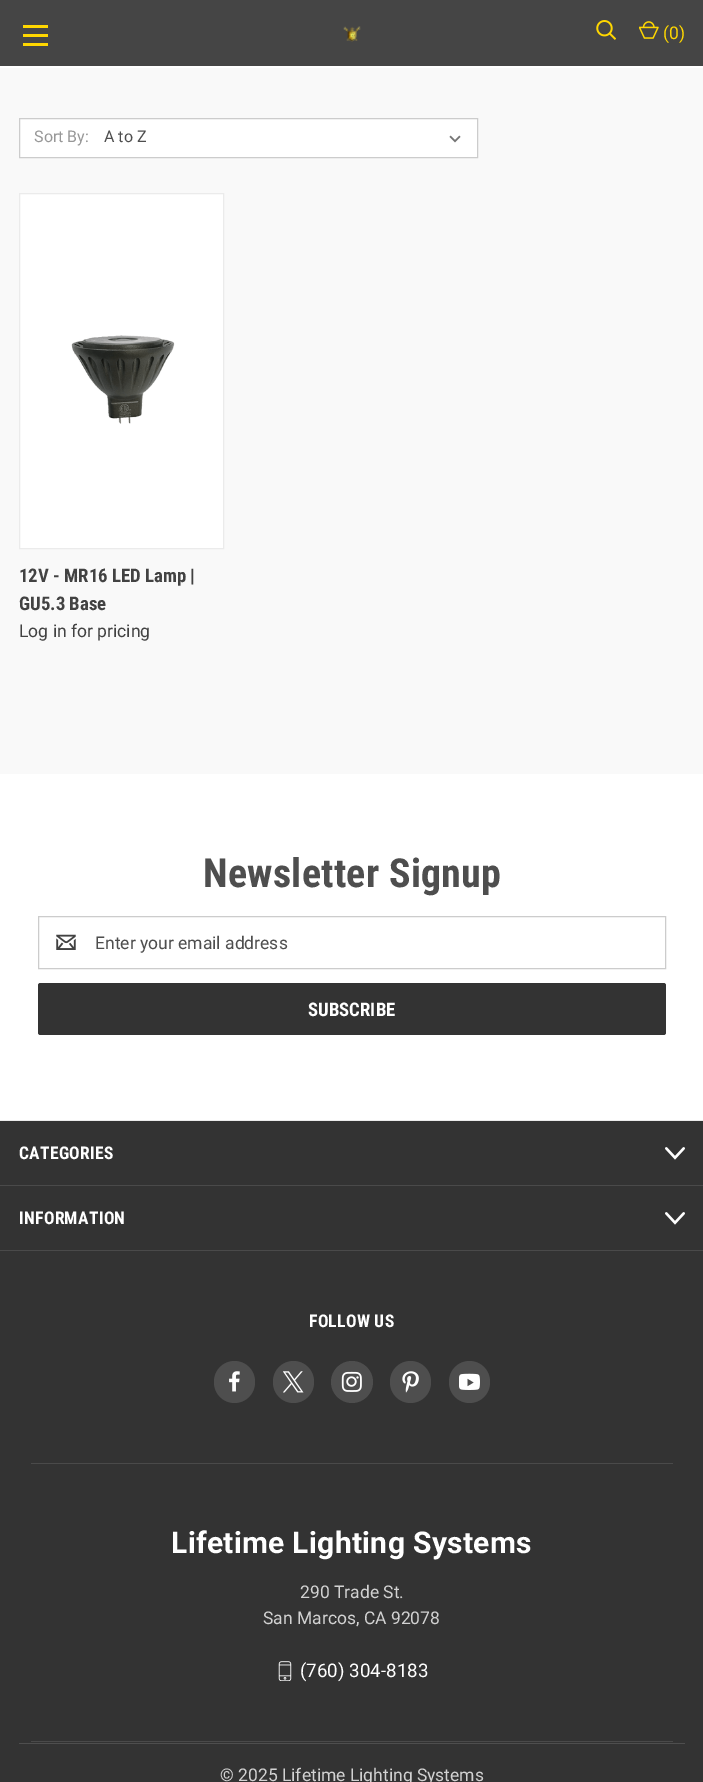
%!PS
<< /PageSize [703 1782] >> setpagedevice
/mt/moveto load def
/li/lineto load def
/cp/closepath load def
/fl/fill load def
/st/stroke load def
/gs/gsave load def
/gr/grestore load def
/co { dup -16 bitshift 255 div exch dup -8 bitshift 255 and 255 div exch 255 and 255 div setrgbcolor } def
/fn { [ exch dup neg 0 0 3 -1 roll 0 0 ] selectfont } def
/tx { co fn moveto show } def
/bx { co rectfill } def
/ci { newpath 0 360 arc closepath } def
/rr { 5 dict begin { /r /h /w /y /x } { exch def } forall
  x r add y moveto x w add y 2 copy h add r arct x w add y h add x 1 index r arct
  x y h add x y r arct x y 2 copy exch w add exch r arct closepath end } def
/im { 5 dict begin { /h /w /y /x /name } { exch def } forall
  gsave x y translate w h scale
  w h 8 [w 0 0 h 0 0] name (r) file false 3 colorimage grestore end } def
0 1782 translate 1 -1 scale
4 setmiterlimit
0 0 703 1782 16#FFFFFF bx
0 0 703 66 16#454545 bx
23 34 25 3 16#FFD700 bx
23 25 25 3 16#FFD700 bx
23 43 25 3 16#FFD700 bx
(media/1.raw) 343 26 18 16 im
(media/2.raw) 596 20 20 20 im
(media/3.raw) 639 21 20 18 im
0 68 703 706 16#F9F9F9 bx
16#FFFFFF co
19.5 118.5 mt 477.5 118.5 li 477.5 157.5 li 19.5 157.5 li cp gs fl gr
16#CCCCCC co
st
(media/4.raw) 449 135 12 8 im
16#FFFFFF co
19.5 193.5 mt 223.5 193.5 li 223.5 548.5 li 19.5 548.5 li cp gs fl gr
16#EBEBEB co
st
(media/5.raw) 71 335 104 89 im
16#CCCCCC co
38.5 916.5 627 52 rectstroke
(media/6.raw) 56 934 20 16 im
16#333333 co
38 983 628 52 2.5 rr fl
0 1121 703 661 16#333333 bx
0 1120 703 1 16#EBEBEB bx
0 1185 703 1 16#4A4A4A bx
(media/7.raw) 665 1147 20 13 im
0 1250 703 1 16#4A4A4A bx
(media/7.raw) 665 1212 20 13 im
31 1463 642 1 16#4A4A4A bx
16#4E4E4E co
214 1361 41 42 20.5 rr fl
(media/8.raw) 229 1371 11 21 im
273 1361 41 42 20.5 rr fl
(media/9.raw) 283 1371 21 22 im
352 1382 21 ci fl
(media/10.raw) 341 1371 21 21 im
390 1361 41 42 20.5 rr fl
(media/11.raw) 402 1371 17 22 im
449 1361 41 42 20.5 rr fl
(media/12.raw) 459 1373 21 17 im
31 1741 642 1 16#4A4A4A bx
(media/13.raw) 278 1661 14 20 im
19 1743 666 1 16#4E4E4E bx
(\(0\)) 663 39 /Roboto-Regular 17.5 16#FFD700 tx
(Sort By:) 34 142 /Roboto-Regular 16 16#989898 tx
(A to Z) 104 142 /Roboto-Regular 16 16#4E4E4E tx
(12V - MR16 LED Lamp |) 19 582 /RobotoCondensed-Bold 18.75 16#424242 tx
(GU5.3 Base) 19 610 /RobotoCondensed-Bold 18.75 16#424242 tx
(Log in for pricing) 19 637 /Roboto-Regular 17.5 16#424242 tx
/RobotoCondensed-Bold 40 fn
16#4E4E4E co
203 887 mt .3 0 (Newsletter Signup) ashow
(Enter your email address) 95 949 /Roboto-Regular 17.5 16#4E4E4E tx
(SUBSCRIBE) 308 1016 /RobotoCondensed-Bold 18.75 16#FFFFFF tx
/RobotoCondensed-Bold 17.5 fn
19 1159 mt .3 0 (CATEGORIES) ashow
19 1224 mt .3 0 (INFORMATION) ashow
309 1327 mt .3 0 (FOLLOW US) ashow
/Roboto-Bold 30 fn
171 1553 mt .3 0 (Lifetime Lighting Systems) ashow
(290 Trade St.) 300 1598 /Roboto-Regular 17.5 16#D2D2D2 tx
(San Marcos, CA 92078) 263 1624 /Roboto-Regular 17.5 16#D2D2D2 tx
(\(760\) 304-8183) 300 1677 /Roboto-Regular 18.75 16#FFFFFF tx
(© 2025 Lifetime Lighting Systems) 220 1781 /Roboto-Regular 17.5 16#D2D2D2 tx
showpage
